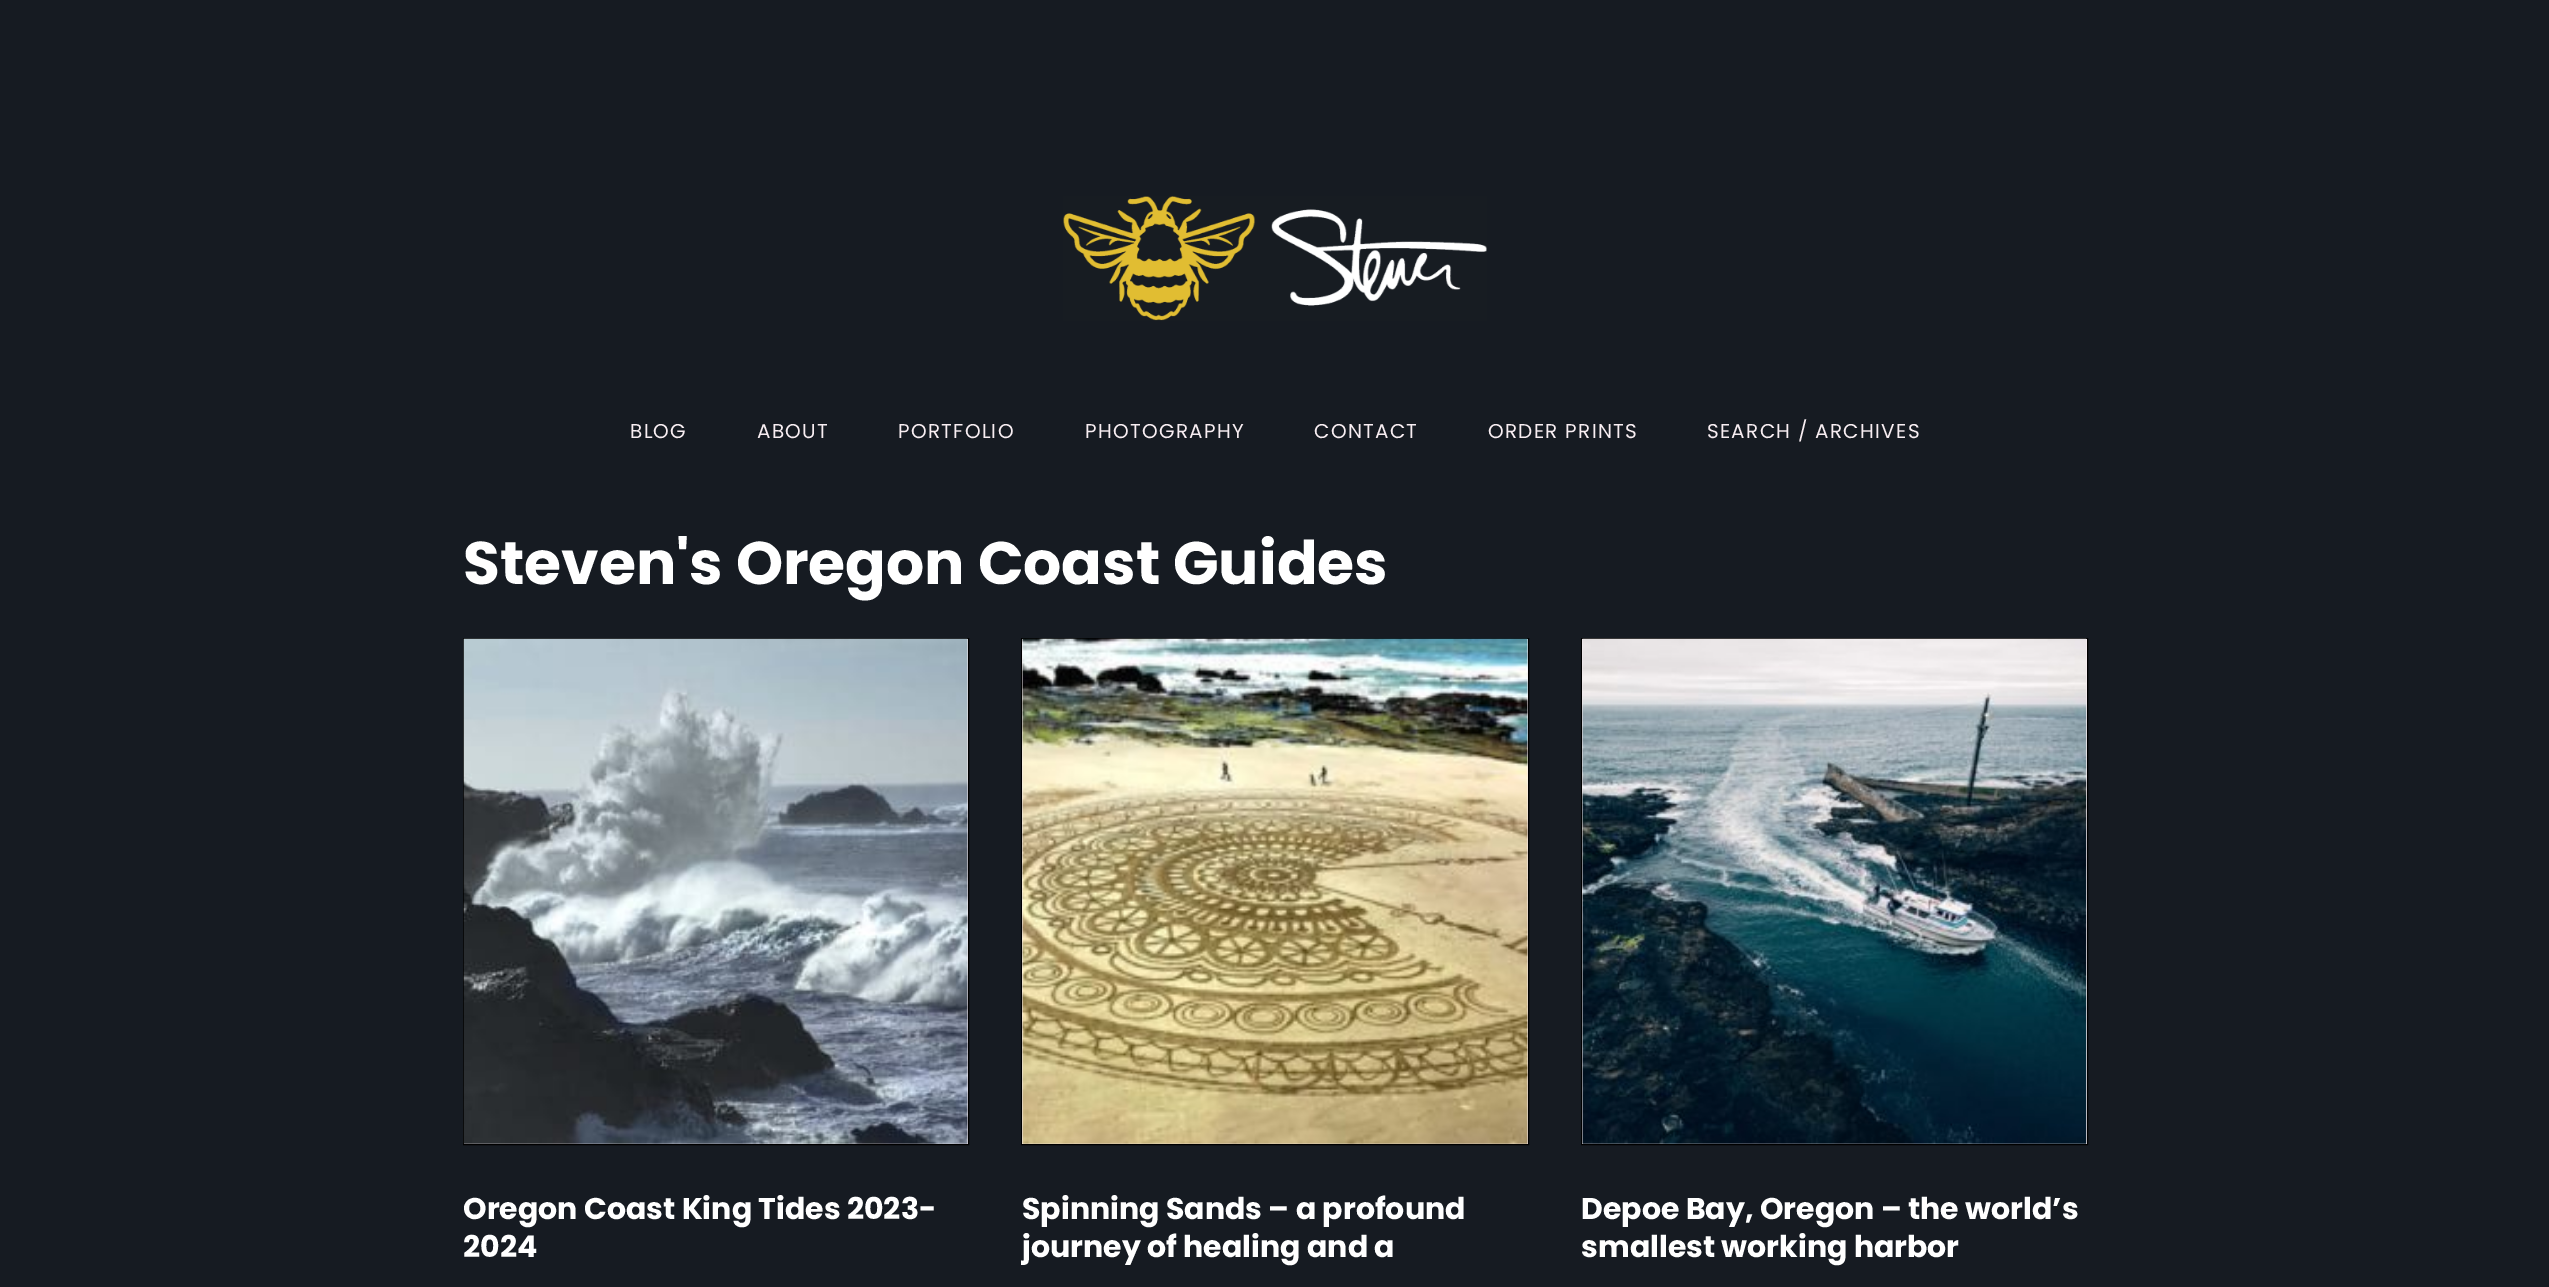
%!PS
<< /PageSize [2549 1287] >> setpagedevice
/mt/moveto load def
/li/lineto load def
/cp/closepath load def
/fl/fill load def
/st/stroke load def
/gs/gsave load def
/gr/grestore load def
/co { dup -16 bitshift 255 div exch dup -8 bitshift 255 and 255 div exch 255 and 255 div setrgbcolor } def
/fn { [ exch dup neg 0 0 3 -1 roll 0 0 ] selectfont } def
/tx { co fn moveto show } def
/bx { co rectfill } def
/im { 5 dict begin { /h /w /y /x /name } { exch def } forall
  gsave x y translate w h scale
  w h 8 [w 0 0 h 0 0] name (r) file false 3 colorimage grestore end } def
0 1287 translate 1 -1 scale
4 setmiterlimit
0 0 2549 1287 16#161B22 bx
(media/1.raw) 1063 196 424 125 im
16#F8EEF2 co
463.5 638.5 mt 968.5 638.5 li 968.5 1144.5 li 463.5 1144.5 li cp gs fl gr
16#000000 co
st
(media/2.raw) 463 638 505 506 im
16#F8EEF2 co
1021.5 638.5 mt 1528.5 638.5 li 1528.5 1144.5 li 1021.5 1144.5 li cp gs fl gr
16#000000 co
st
(media/3.raw) 1022 638 506 506 im
16#F8EEF2 co
1581.5 638.5 mt 2087.5 638.5 li 2087.5 1144.5 li 1581.5 1144.5 li cp gs fl gr
16#000000 co
st
(media/4.raw) 1582 638 505 506 im
/Poppins-Regular 20 fn
16#F8EEF2 co
630 438 mt 1.25 0 (BLOG) ashow
757 438 mt 1.25 0 (ABOUT) ashow
898 438 mt 1.25 0 (PORTFOLIO) ashow
1085 438 mt 1.25 0 (PHOTOGRAPHY) ashow
1314 438 mt 1.25 0 (CONTACT) ashow
1488 438 mt 1.25 0 (ORDER PRINTS) ashow
1707 438 mt 1.25 0 (SEARCH / ARCHIVES) ashow
(Steven's Oregon Coast Guides) 463 584 /Poppins-Bold 60 16#FFFFFF tx
(Oregon Coast King Tides 2023-) 463 1219 /Poppins-Bold 30 16#FFFFFF tx
(2024) 463 1257 /Poppins-Bold 30 16#FFFFFF tx
(Spinning Sands – a profound) 1022 1219 /Poppins-Bold 30 16#FFFFFF tx
(journey of healing and a) 1022 1257 /Poppins-Bold 30 16#FFFFFF tx
(Depoe Bay, Oregon – the world’s) 1581 1219 /Poppins-Bold 30 16#FFFFFF tx
(smallest working harbor) 1581 1257 /Poppins-Bold 30 16#FFFFFF tx
showpage
